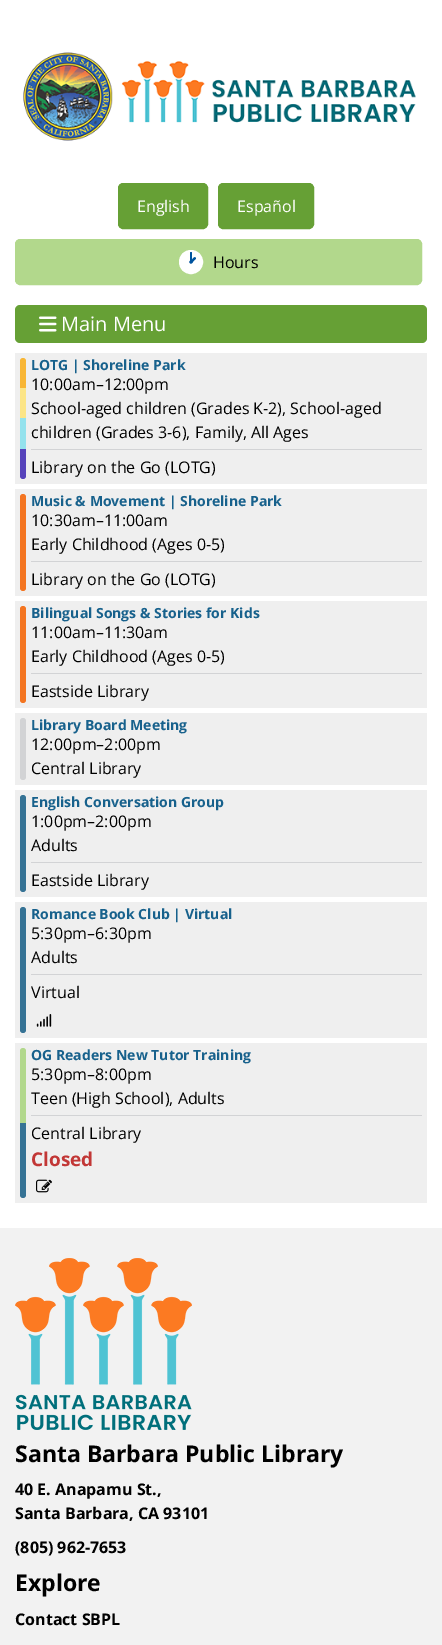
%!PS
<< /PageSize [442 1645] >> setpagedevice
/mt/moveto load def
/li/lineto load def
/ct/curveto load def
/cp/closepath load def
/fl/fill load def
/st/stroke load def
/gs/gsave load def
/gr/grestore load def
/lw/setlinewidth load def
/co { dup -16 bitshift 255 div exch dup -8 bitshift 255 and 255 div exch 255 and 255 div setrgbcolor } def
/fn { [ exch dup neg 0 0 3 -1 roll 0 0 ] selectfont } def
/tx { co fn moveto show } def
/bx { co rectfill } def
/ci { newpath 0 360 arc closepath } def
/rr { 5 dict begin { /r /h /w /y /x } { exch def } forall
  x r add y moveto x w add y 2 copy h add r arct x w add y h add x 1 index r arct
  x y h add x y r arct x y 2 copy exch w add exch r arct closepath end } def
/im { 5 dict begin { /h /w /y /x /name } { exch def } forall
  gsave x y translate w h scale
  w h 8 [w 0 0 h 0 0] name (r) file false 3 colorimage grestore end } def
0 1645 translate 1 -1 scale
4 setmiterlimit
0 0 442 1645 16#FFFFFF bx
(media/1.raw) 23 52 393 89 im
16#66A035 co
118.5 183.5 89 45 4.5 rr gs fl gr
st
218.5 183.5 95 45 4.5 rr gs fl gr
st
16#B2D88C co
15.5 239.5 406 45 4.5 rr gs fl gr
st
16#00549F co
191 262 7 ci gs fl gr
16#FFFFFF co
10 lw
st
16#00549F co
190 252 2 10 1 rr fl
195.5 257.5 mt 197 258.5 194.5 260 194 260.5 ct 193.5 261 192 263.5 191 262.5 ct 189.5 261.5 192 260 192.5 259 ct 193 258.5 194.5 256.5 195.5 257.5 ct cp fl
16#66A035 co
15 305 412 38 5 rr fl
(media/2.raw) 39 316 18 16 im
15 353 412 131 16#EFEFEF bx
16#F8B635 co
23 358 mt 24.5 358 26 359.5 26 361 ct 26 388 li 20 388 li 20 361 li 20 359.5 21.5 358 23 358 ct cp fl
20 388 6 30 16#FCE587 bx
20 418 6 31 16#94E2ED bx
16#5643BB co
20 449 mt 26 449 li 26 476 li 26 477.5 24.5 479 23 479 ct 21.5 479 20 477.5 20 476 ct cp fl
31 449 391 1 16#D2D3D5 bx
15 489 412 107 16#EFEFEF bx
16#F47521 co
20 494 6 97 3 rr fl
31 561 391 1 16#D2D3D5 bx
15 601 412 107 16#EFEFEF bx
16#F47521 co
20 606 6 97 3 rr fl
31 673 391 1 16#D2D3D5 bx
15 713 412 72 16#EFEFEF bx
16#D2D3D5 co
20 718 6 62 3 rr fl
15 790 412 107 16#EFEFEF bx
16#367395 co
20 795 6 97 3 rr fl
31 862 391 1 16#D2D3D5 bx
15 902 412 136 16#EFEFEF bx
16#367395 co
20 907 6 126 3 rr fl
31 974 391 1 16#D2D3D5 bx
(media/3.raw) 36 1014 16 13 im
15 1043 412 160 16#EFEFEF bx
16#B2D88C co
23 1048 mt 24.5 1048 26 1049.5 26 1051 ct 26 1123 li 20 1123 li 20 1051 li 20 1049.5 21.5 1048 23 1048 ct cp fl
16#367395 co
20 1123 mt 26 1123 li 26 1195 li 26 1196.5 24.5 1198 23 1198 ct 21.5 1198 20 1196.5 20 1195 ct cp fl
31 1115 391 1 16#D2D3D5 bx
(media/4.raw) 36 1179 16 14 im
0 1228 442 417 16#F2F2F2 bx
(media/5.raw) 15 1258 177 172 im
(English) 137 212 /OpenSans-Regular 16 16#FFFFFF tx
(Español) 237 212 /OpenSans-Regular 16 16#FFFFFF tx
(Hours) 213 268 /OpenSans-Regular 16 16#000000 tx
(Main Menu) 61 331 /OpenSans-Regular 20 16#FFFFFF tx
(LOTG | Shoreline Park) 31 370 /OpenSans-Bold 14 16#17618C tx
(10:00am–12:00pm) 31 390 /OpenSans-Regular 16 16#000000 tx
(School-aged children \(Grades K-2\), School-aged) 31 414 /OpenSans-Regular 16 16#000000 tx
(children \(Grades 3-6\), Family, All Ages) 31 438 /OpenSans-Regular 16 16#000000 tx
(Library on the Go \(LOTG\)) 31 473 /OpenSans-Regular 16 16#000000 tx
(Music & Movement | Shoreline Park) 31 506 /OpenSans-Bold 14 16#17618C tx
(10:30am–11:00am) 31 526 /OpenSans-Regular 16 16#000000 tx
(Early Childhood \(Ages 0-5\)) 31 550 /OpenSans-Regular 16 16#000000 tx
(Library on the Go \(LOTG\)) 31 585 /OpenSans-Regular 16 16#000000 tx
(Bilingual Songs & Stories for Kids) 31 618 /OpenSans-Bold 14 16#17618C tx
(11:00am–11:30am) 31 638 /OpenSans-Regular 16 16#000000 tx
(Early Childhood \(Ages 0-5\)) 31 662 /OpenSans-Regular 16 16#000000 tx
(Eastside Library) 31 697 /OpenSans-Regular 16 16#000000 tx
(Library Board Meeting) 31 730 /OpenSans-Bold 14 16#17618C tx
(12:00pm–2:00pm) 31 750 /OpenSans-Regular 16 16#000000 tx
(Central Library) 31 774 /OpenSans-Regular 16 16#000000 tx
(English Conversation Group) 31 807 /OpenSans-Bold 14 16#17618C tx
(1:00pm–2:00pm) 31 827 /OpenSans-Regular 16 16#000000 tx
(Adults) 31 851 /OpenSans-Regular 16 16#000000 tx
(Eastside Library) 31 886 /OpenSans-Regular 16 16#000000 tx
(Romance Book Club | Virtual) 31 919 /OpenSans-Bold 14 16#17618C tx
(5:30pm–6:30pm) 31 939 /OpenSans-Regular 16 16#000000 tx
(Adults) 31 963 /OpenSans-Regular 16 16#000000 tx
(Virtual) 31 998 /OpenSans-Regular 16 16#000000 tx
(OG Readers New Tutor Training) 31 1060 /OpenSans-Bold 14 16#17618C tx
(5:30pm–8:00pm) 31 1080 /OpenSans-Regular 16 16#000000 tx
(Teen \(High School\), Adults) 31 1104 /OpenSans-Regular 16 16#000000 tx
(Central Library) 31 1139 /OpenSans-Regular 16 16#000000 tx
(Closed) 31 1166 /OpenSans-Bold 19 16#C23736 tx
(Santa Barbara Public Library) 15 1462 /OpenSans-Bold 23 16#000000 tx
(40 E. Anapamu St.,) 15 1495 /OpenSans-Bold 16 16#000000 tx
(Santa Barbara, CA 93101) 15 1519 /OpenSans-Bold 16 16#000000 tx
(\(805\) 962-7653) 15 1553 /OpenSans-Bold 16 16#000000 tx
(Explore) 15 1591 /OpenSans-Bold 23 16#000000 tx
(Contact SBPL) 15 1625 /OpenSans-Bold 16 16#000000 tx
showpage
